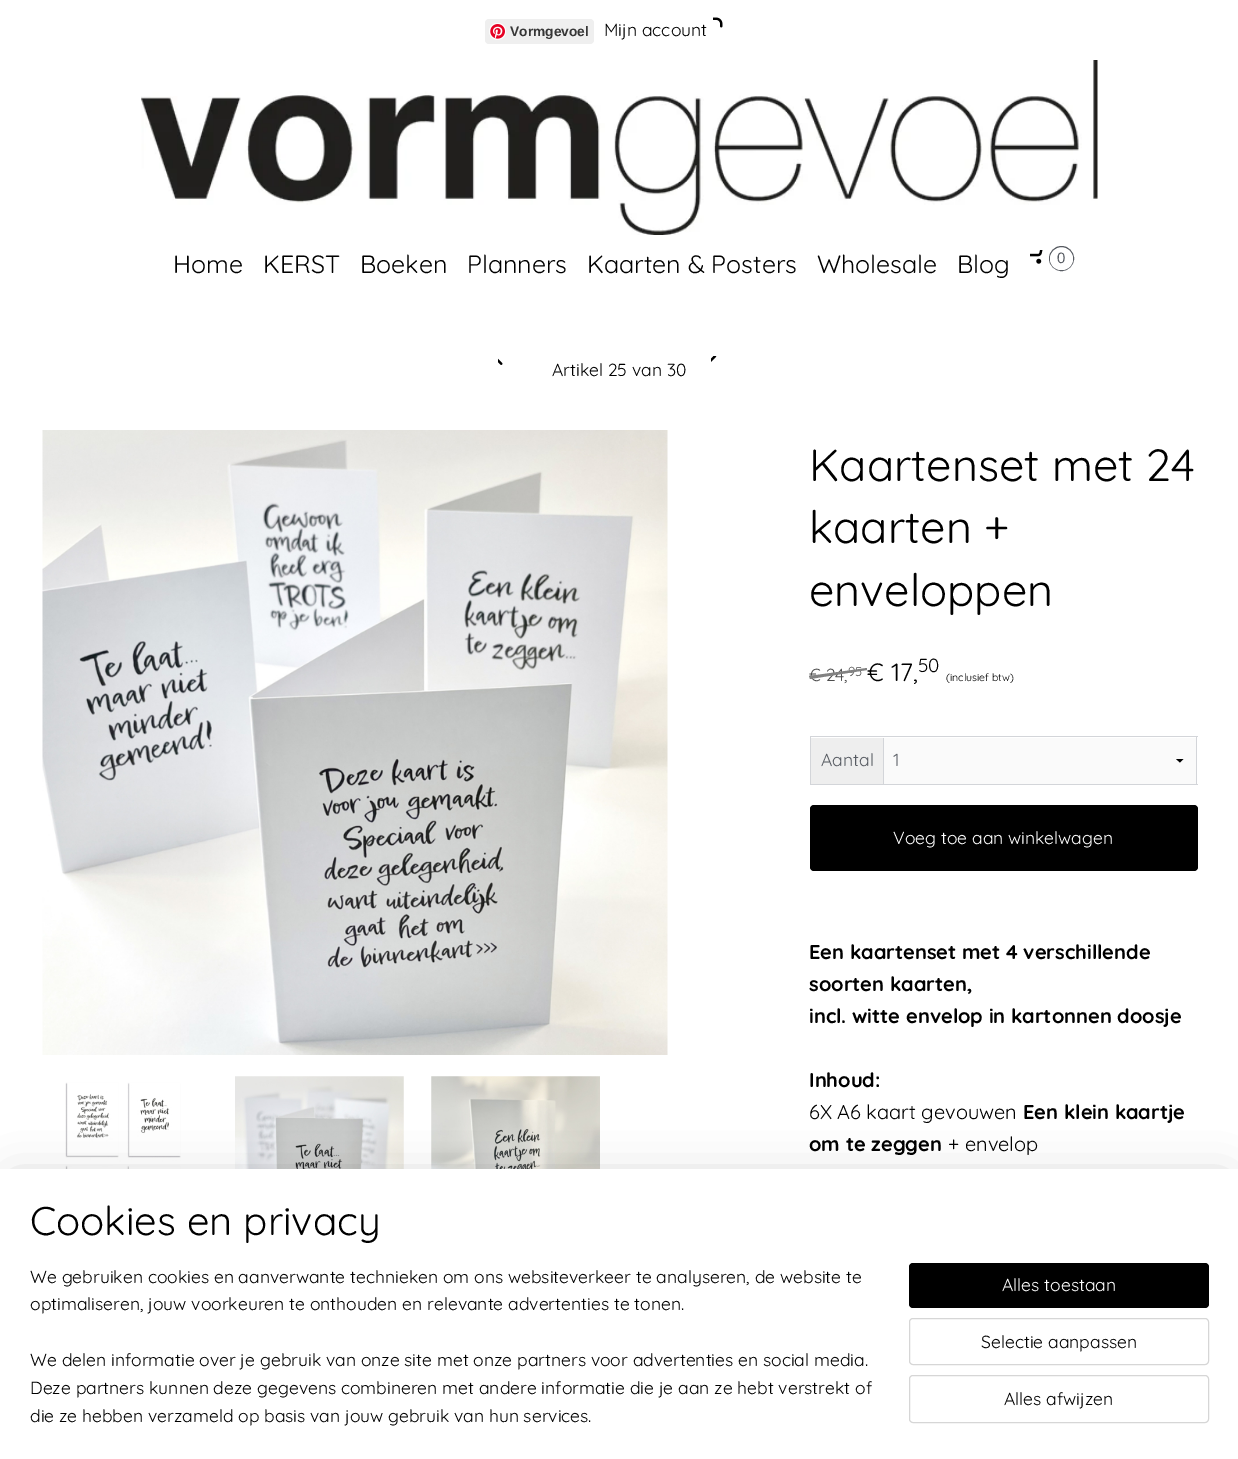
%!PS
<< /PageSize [1238 1459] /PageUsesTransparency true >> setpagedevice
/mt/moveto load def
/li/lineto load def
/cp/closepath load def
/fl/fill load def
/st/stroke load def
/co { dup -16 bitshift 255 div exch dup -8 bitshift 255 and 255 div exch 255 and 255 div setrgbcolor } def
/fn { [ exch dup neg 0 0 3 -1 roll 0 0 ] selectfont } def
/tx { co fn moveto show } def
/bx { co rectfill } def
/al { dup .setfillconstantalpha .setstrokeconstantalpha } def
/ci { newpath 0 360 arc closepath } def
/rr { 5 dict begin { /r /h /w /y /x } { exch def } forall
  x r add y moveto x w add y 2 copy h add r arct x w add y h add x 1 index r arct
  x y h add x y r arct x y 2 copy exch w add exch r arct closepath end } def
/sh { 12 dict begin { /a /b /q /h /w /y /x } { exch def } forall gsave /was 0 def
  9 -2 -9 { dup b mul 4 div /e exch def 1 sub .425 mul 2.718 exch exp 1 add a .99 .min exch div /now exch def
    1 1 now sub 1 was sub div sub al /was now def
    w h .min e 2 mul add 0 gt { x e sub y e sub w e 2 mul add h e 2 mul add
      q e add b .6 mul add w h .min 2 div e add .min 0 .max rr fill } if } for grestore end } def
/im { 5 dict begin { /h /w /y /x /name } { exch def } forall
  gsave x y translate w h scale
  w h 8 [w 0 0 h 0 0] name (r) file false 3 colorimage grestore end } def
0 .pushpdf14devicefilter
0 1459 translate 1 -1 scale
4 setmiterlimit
0 0 1238 1459 16#FFFFFF bx
16#EFEFEF co
485 19 109 25 4 rr fl
(media/1.raw) 489 23 17 17 im
(media/2.raw) 713 17 10 11 im
(media/3.raw) 141 60 957 175 im
(media/4.raw) 1030 250 13 14 im
16#575B62 co
1061.5 258.5 12 ci st
16#FFFFFF co
1050 248 23 22 11 rr fl
(media/5.raw) 498 358 5 7 im
(media/6.raw) 711 356 6 6 im
(media/7.raw) 42 430 626 625 im
(media/8.raw) 65 1082 116 87 im
(media/9.raw) 235 1076 169 93 im
(media/10.raw) 431 1076 169 93 im
810 736 388 1 16#D3D5D9 bx
1196 736 1 49 16#D3D5D9 bx
883 738 1 47 16#D3D5D9 bx
810 784 388 1 16#D3D5D9 bx
810 736 1 49 16#D3D5D9 bx
811 738 72 46 16#EEEEEE bx
884 738 312 46 16#FAFAFA bx
16#000000 co
1183.5 759 mt 1180 762.5 li 1176 759 li cp fl
810 805 388 66 4 rr fl
13 1181 1213 267 0 22.5 .2 sh
0 1169 1238 290 16#FFFFFF bx
16#000000 co
909 1263 300 45 4 rr fl
16#D6D6D6 co
909.5 1318.5 299 46 3.5 rr st
909.5 1375.5 299 47 3.5 rr st
(Vormgevoel) 510 36 /LiberationSans-Bold 13.75 16#363636 tx
(Mijn account) 604 36 /Quicksand-Regular 17.5 16#000000 tx
(Home) 173 273 /Quicksand-Regular 25 16#000000 tx
(KERST) 263 273 /Quicksand-Regular 25 16#000000 tx
(Boeken) 360 273 /Quicksand-Regular 25 16#000000 tx
(Planners) 467 273 /Quicksand-Regular 25 16#000000 tx
(Kaarten & Posters) 587 273 /Quicksand-Regular 25 16#000000 tx
(Wholesale) 817 273 /Quicksand-Regular 25 16#000000 tx
(Blog) 957 273 /Quicksand-Regular 25 16#000000 tx
(0) 1057 263 /LiberationSans-Regular 15 16#575B62 tx
(Artikel 25 van 30) 552 376 /Quicksand-Regular 17.5 16#000000 tx
(Kaartenset met 24) 809 481 /Quicksand-Regular 45 16#000000 tx
(kaarten +) 809 543 /Quicksand-Regular 45 16#000000 tx
(enveloppen) 809 606 /Quicksand-Regular 45 16#000000 tx
(€ 24,) 809 681 /Quicksand-Regular 17.5 16#4D4D4D tx
(95) 848 676 /Quicksand-Regular 13 16#4D4D4D tx
16#828282 co
809 676 mt 867 668 li 867 670 li 810 679 li cp fl
(€ 17,) 867 681 /Quicksand-Regular 25 16#000000 tx
(50) 918 672 /Quicksand-Regular 19 16#000000 tx
(\(inclusief btw\)) 946 681 /Quicksand-Regular 10.5 16#000000 tx
(Aantal) 821 766 /Quicksand-Regular 17.5 16#575B62 tx
(1) 893 766 /Quicksand-Regular 17.5 16#575B62 tx
(Voeg toe aan winkelwagen) 893 844 /Quicksand-Regular 17.5 16#FFFFFF tx
(Een kaartenset met 4 verschillende) 809 959 /Quicksand-Bold 20 16#000000 tx
(soorten kaarten,) 809 991 /Quicksand-Bold 20 16#000000 tx
(incl. witte envelop in kartonnen doosje) 809 1023 /Quicksand-Bold 20 16#000000 tx
(Inhoud:) 809 1087 /Quicksand-Bold 20 16#000000 tx
(6X A6 kaart gevouwen) 809 1119 /Quicksand-Regular 20 16#000000 tx
(Een klein kaartje) 1023 1119 /Quicksand-Bold 20 16#000000 tx
(om te zeggen) 809 1151 /Quicksand-Bold 20 16#000000 tx
(+ envelop) 948 1151 /Quicksand-Regular 20 16#000000 tx
(Cookies en privacy) 30 1235 /Quicksand-Regular 40 16#000000 tx
(We gebruiken cookies en aanverwante technieken om ons websiteverkeer te analyseren, de website te) 30 1283 /Quicksand-Regular 17.5 16#000000 tx
(optimaliseren, jouw voorkeuren te onthouden en relevante advertenties te tonen.) 30 1310 /Quicksand-Regular 17.5 16#000000 tx
(We delen informatie over je gebruik van onze site met onze partners voor advertenties en social media.) 30 1366 /Quicksand-Regular 17.5 16#000000 tx
(Deze partners kunnen deze gegevens combineren met andere informatie die je aan ze hebt verstrekt of) 30 1394 /Quicksand-Regular 17.5 16#000000 tx
(die ze hebben verzameld op basis van jouw gebruik van hun services.) 30 1422 /Quicksand-Regular 17.5 16#000000 tx
(Alles toestaan) 1002 1291 /Quicksand-Regular 17.5 16#FFFFFF tx
(Selectie aanpassen) 981 1348 /Quicksand-Regular 17.5 16#000000 tx
(Alles afwijzen) 1004 1405 /Quicksand-Regular 17.5 16#000000 tx
.poppdf14devicefilter showpage
